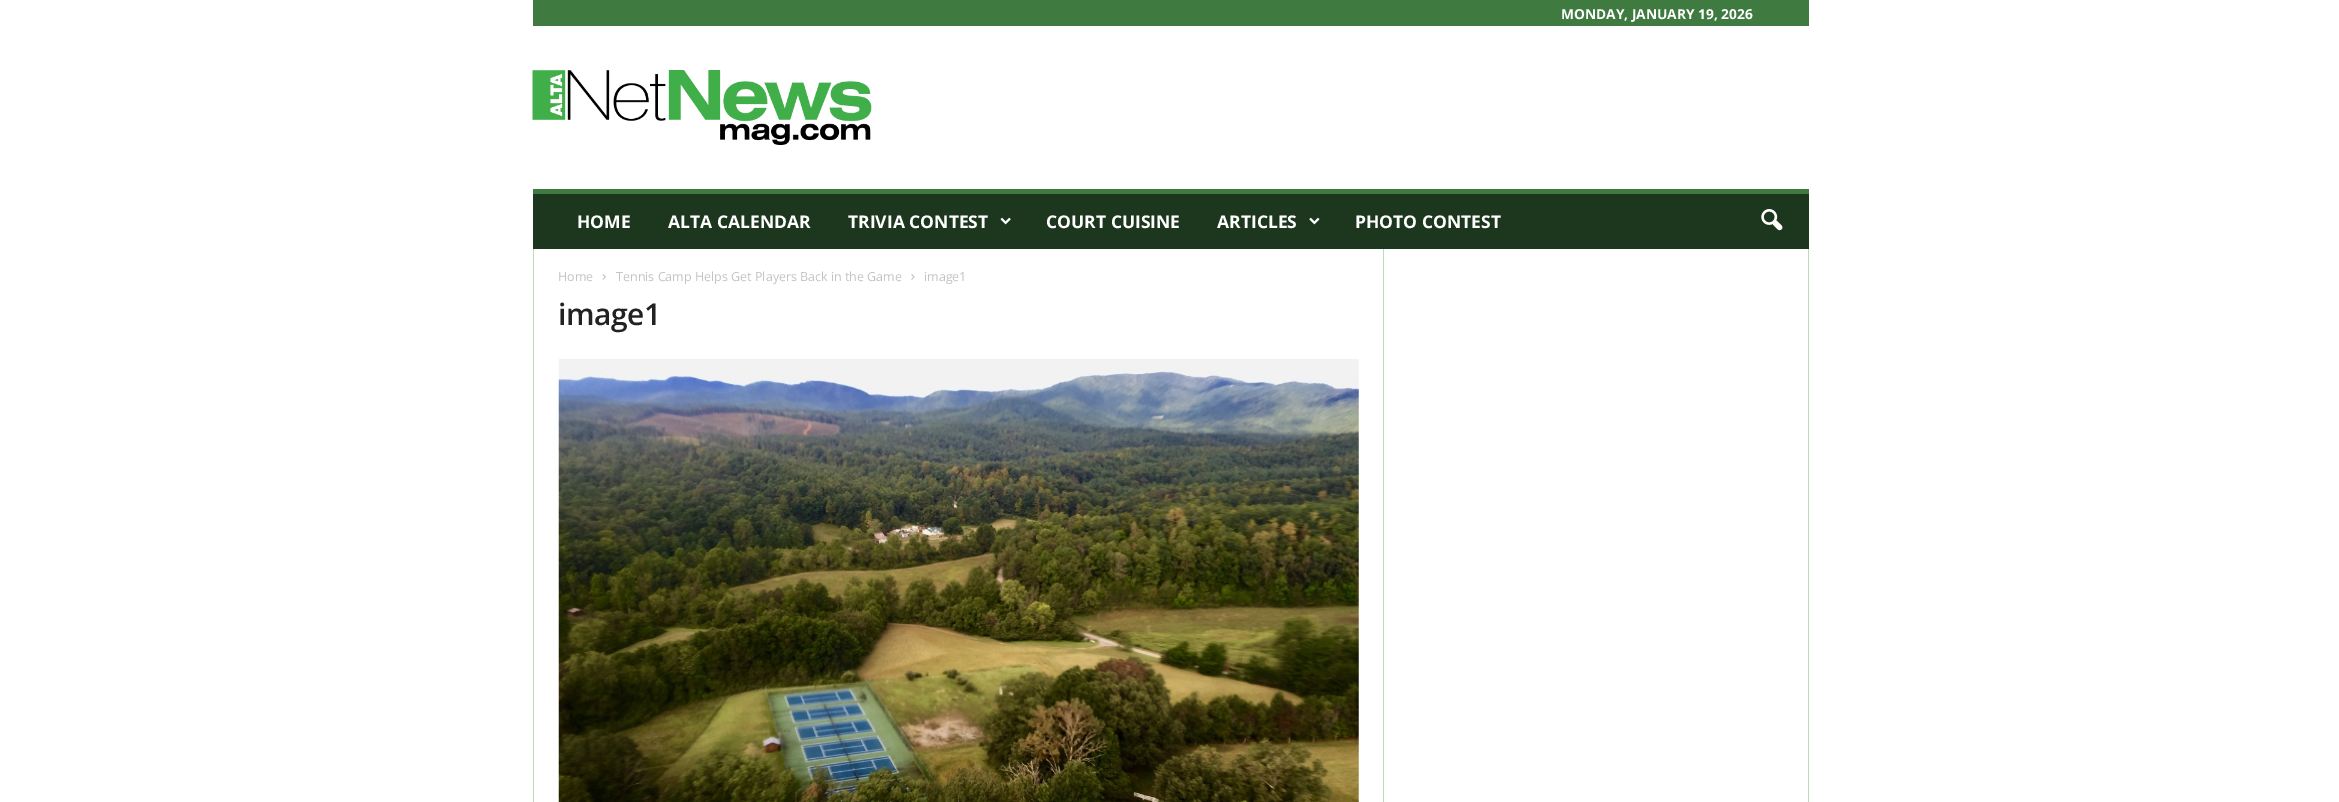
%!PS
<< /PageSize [2339 802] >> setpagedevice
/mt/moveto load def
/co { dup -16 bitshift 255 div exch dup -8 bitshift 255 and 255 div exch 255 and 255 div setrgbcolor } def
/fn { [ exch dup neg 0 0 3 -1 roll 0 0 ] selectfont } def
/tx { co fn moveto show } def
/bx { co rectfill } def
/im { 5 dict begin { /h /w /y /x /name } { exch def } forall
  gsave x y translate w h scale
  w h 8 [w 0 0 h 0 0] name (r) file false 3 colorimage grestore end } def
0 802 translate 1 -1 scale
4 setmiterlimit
0 0 2339 802 16#FFFFFF bx
533 0 1276 26 16#3F7A40 bx
(media/1.raw) 532 70 340 75 im
533 194 1276 55 16#1C371D bx
533 189 1276 5 16#3F7A40 bx
(media/2.raw) 1000 217 11 8 im
(media/3.raw) 1309 217 11 8 im
(media/4.raw) 1761 209 22 22 im
533 249 1 553 16#BADCBB bx
(media/5.raw) 602 274 4 6 im
(media/6.raw) 911 274 4 6 im
(media/7.raw) 558 359 801 443 im
1383 249 1 553 16#BADCBB bx
1808 249 1 553 16#BADCBB bx
(MONDAY, JANUARY 19, 2026) 1561 19 /OpenSans-Bold 13.75 16#FFFFFF tx
(HOME) 577 228 /OpenSans-Bold 17.5 16#FFFFFF tx
(ALTA CALENDAR) 668 228 /OpenSans-Bold 17.5 16#FFFFFF tx
(TRIVIA CONTEST) 848 228 /OpenSans-Bold 17.5 16#FFFFFF tx
(COURT CUISINE) 1046 228 /OpenSans-Bold 17.5 16#FFFFFF tx
(ARTICLES) 1217 228 /OpenSans-Bold 17.5 16#FFFFFF tx
(PHOTO CONTEST) 1355 228 /OpenSans-Bold 17.5 16#FFFFFF tx
(Home) 558 281 /OpenSans-Regular 12.5 16#C3C3C3 tx
(Tennis Camp Helps Get Players Back in the Game) 616 281 /OpenSans-Regular 12.5 16#C3C3C3 tx
(image1) 924 281 /OpenSans-Regular 12.5 16#C3C3C3 tx
/OpenSans-SemiBold 30 fn
16#222222 co
558 325 mt -.5 0 (image1) ashow
showpage
